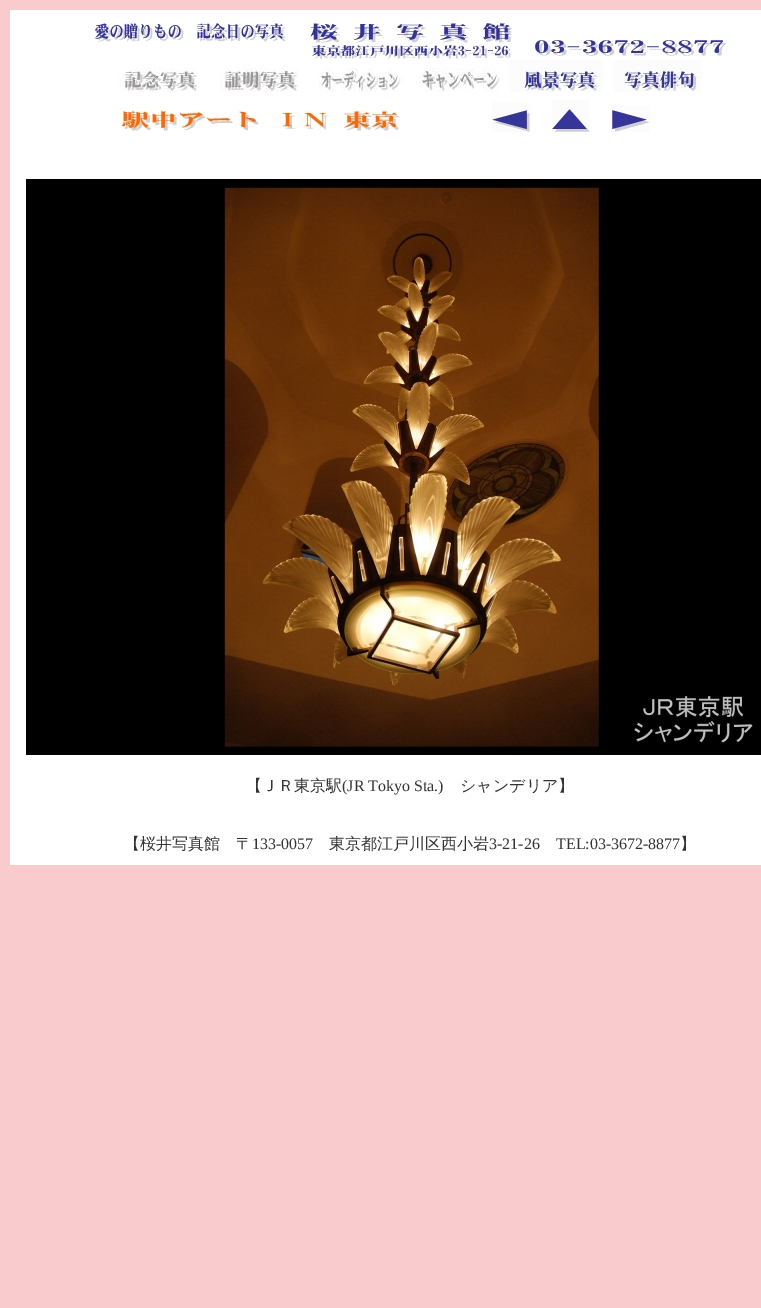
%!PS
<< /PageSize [761 1308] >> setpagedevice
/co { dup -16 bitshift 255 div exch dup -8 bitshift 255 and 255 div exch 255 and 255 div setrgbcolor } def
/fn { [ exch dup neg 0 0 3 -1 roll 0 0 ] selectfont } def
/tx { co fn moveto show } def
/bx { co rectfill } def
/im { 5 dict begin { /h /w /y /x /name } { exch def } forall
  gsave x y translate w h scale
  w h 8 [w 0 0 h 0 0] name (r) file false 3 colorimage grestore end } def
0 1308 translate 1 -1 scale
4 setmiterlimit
0 0 761 1308 16#F9CBCD bx
10 10 751 855 16#FFFFFF bx
(media/1.raw) 95 23 631 36 im
(media/2.raw) 118 68 80 24 im
(media/3.raw) 220 68 78 24 im
(media/4.raw) 318 68 87 24 im
(media/5.raw) 419 68 84 24 im
(media/6.raw) 510 60 92 32 im
(media/7.raw) 614 60 88 32 im
(media/8.raw) 121 109 279 22 im
(media/9.raw) 492 102 38 30 im
(media/10.raw) 552 100 38 32 im
(media/11.raw) 611 106 39 26 im
(media/12.raw) 26 179 735 576 im
(【ＪＲ東京駅) 246 791 /WenQuanYiZenHei-Medium 16 16#333333 tx
(\(JR Tokyo Sta.\)) 342 791 /LiberationSerif-Regular 16 16#333333 tx
(シャンデリア】) 460 791 /WenQuanYiZenHei-Medium 16 16#333333 tx
(【桜井写真館　〒) 124 849 /WenQuanYiZenHei-Medium 16 16#333333 tx
(133-0057) 252 849 /LiberationSerif-Regular 16 16#333333 tx
(東京都江戸川区西小岩) 329 849 /WenQuanYiZenHei-Medium 16 16#333333 tx
(3-21-26) 489 849 /LiberationSerif-Regular 16 16#333333 tx
(TEL:03-3672-8877) 556 849 /LiberationSerif-Regular 16 16#333333 tx
(】) 680 849 /WenQuanYiZenHei-Medium 16 16#333333 tx
showpage
